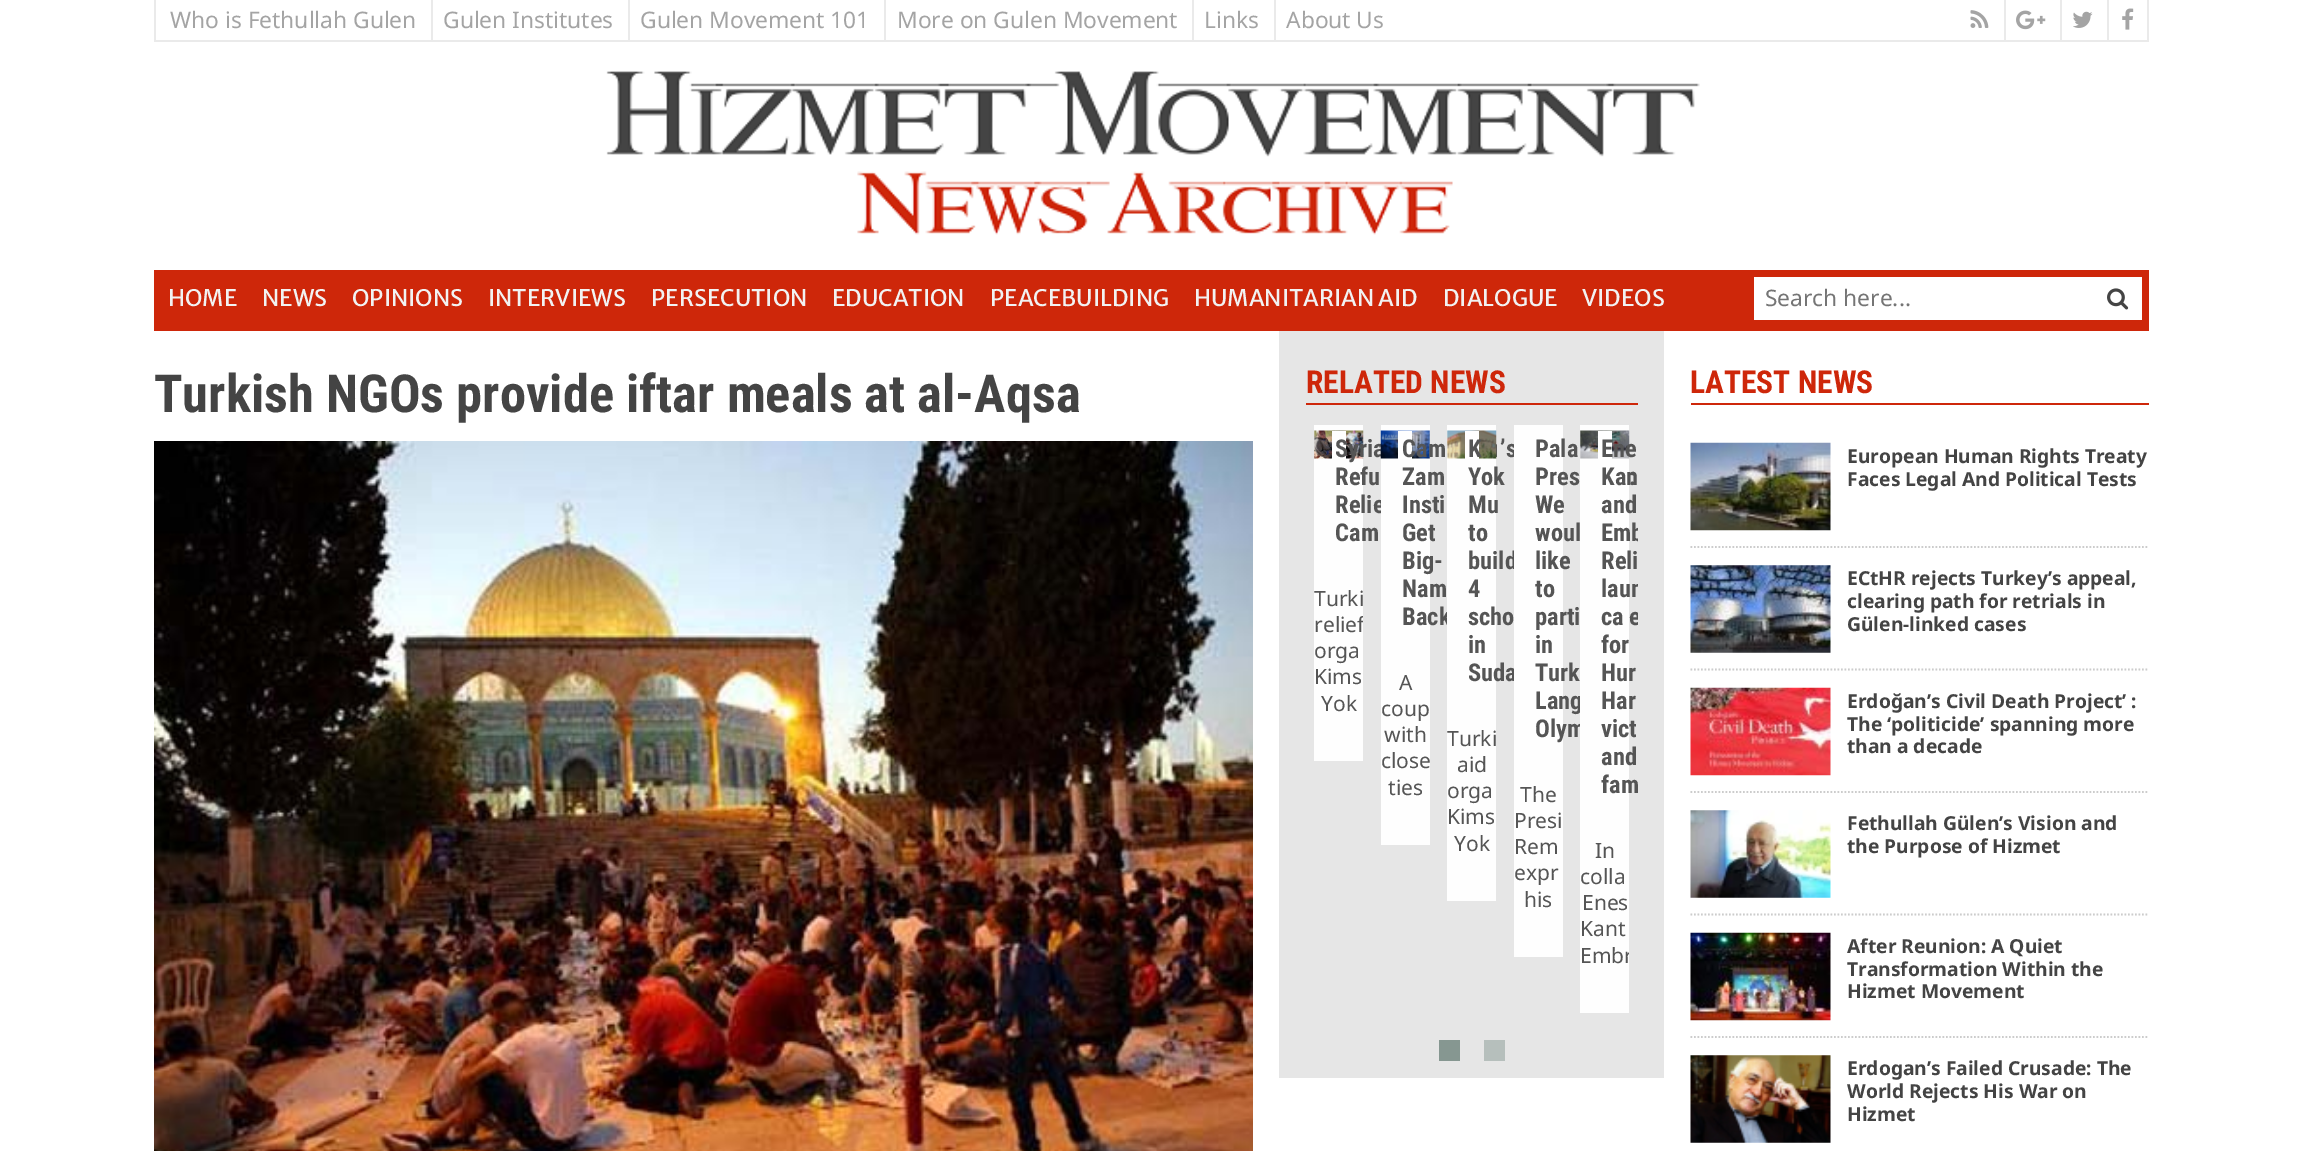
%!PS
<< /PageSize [2303 1151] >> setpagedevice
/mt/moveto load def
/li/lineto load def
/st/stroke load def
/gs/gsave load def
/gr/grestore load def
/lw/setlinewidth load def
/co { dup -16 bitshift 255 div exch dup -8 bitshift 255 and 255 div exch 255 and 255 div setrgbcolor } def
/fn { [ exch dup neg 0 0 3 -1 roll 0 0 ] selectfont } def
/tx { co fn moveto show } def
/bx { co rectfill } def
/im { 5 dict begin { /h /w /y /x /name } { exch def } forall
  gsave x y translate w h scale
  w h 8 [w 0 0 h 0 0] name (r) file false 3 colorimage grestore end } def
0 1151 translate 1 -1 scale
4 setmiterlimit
0 0 2303 1151 16#FFFFFF bx
2147 0 2 42 16#EAEAEA bx
154 40 1995 2 16#EAEAEA bx
154 0 2 42 16#EAEAEA bx
431 0 2 40 16#EAEAEA bx
628 0 2 40 16#EAEAEA bx
884 0 2 40 16#EAEAEA bx
1192 0 2 40 16#EAEAEA bx
1274 0 2 40 16#EAEAEA bx
2004 0 2 40 16#EAEAEA bx
(media/1.raw) 1970 10 19 18 im
2060 0 2 40 16#EAEAEA bx
(media/2.raw) 2016 10 30 20 im
2107 0 2 40 16#EAEAEA bx
(media/3.raw) 2073 11 20 17 im
(media/4.raw) 2122 8 12 22 im
(media/5.raw) 606 71 1094 164 im
154 270 1995 61 16#CE270A bx
1754 277 388 43 16#FFFFFF bx
(media/6.raw) 2107 288 22 22 im
(media/7.raw) 154 441 1099 710 im
1279 331 385 747 16#E6E6E6 bx
1306 403 332 2 16#CE270A bx
1314 425 49 336 16#FEFEFE bx
(media/8.raw) 1314 430 50 29 im
1332 431 14 28 16#FFFFFF bx
1439 1040 21 21 16#869791 bx
1484 1040 21 21 16#B6BFBC bx
1691 403 458 2 16#CE270A bx
16#CCCCCC co
1.8 lw
[1.75 1.75] 0 setdash
1690.5 547 mt 2149 547 li st
(media/12.raw) 1690 442 141 89 im
1690.5 669.5 mt 2149 669.5 li st
(media/13.raw) 1690 565 141 88 im
1690.5 792 mt 2149 792 li st
(media/14.raw) 1690 687 141 89 im
1690.5 914.5 mt 2149 914.5 li st
(media/15.raw) 1690 810 141 88 im
1690.5 1037 mt 2149 1037 li st
(media/16.raw) 1690 932 141 89 im
(media/17.raw) 1690 1055 141 88 im
(Who is Fethullah Gulen) 170 28 /NotoSans-Regular 22.75 16#A4A4A4 tx
(Gulen Institutes) 443 28 /NotoSans-Regular 22.75 16#A4A4A4 tx
(Gulen Movement 101) 640 28 /NotoSans-Regular 22.75 16#A4A4A4 tx
(More on Gulen Movement) 897 28 /NotoSans-Regular 22.75 16#A4A4A4 tx
(Links) 1204 28 /NotoSans-Regular 22.75 16#A4A4A4 tx
(About Us) 1286 28 /NotoSans-Regular 22.75 16#A4A4A4 tx
(HOME) 168 306 /MerriweatherSans-Regular 22.75 16#F2F2F2 tx
(NEWS) 262 306 /MerriweatherSans-Regular 22.75 16#F2F2F2 tx
(OPINIONS) 352 306 /MerriweatherSans-Regular 22.75 16#F2F2F2 tx
(INTERVIEWS) 488 306 /MerriweatherSans-Regular 22.75 16#F2F2F2 tx
(PERSECUTION) 651 306 /MerriweatherSans-Regular 22.75 16#F2F2F2 tx
(EDUCATION) 832 306 /MerriweatherSans-Regular 22.75 16#F2F2F2 tx
(PEACEBUILDING) 990 306 /MerriweatherSans-Regular 22.75 16#F2F2F2 tx
(HUMANITARIAN AID) 1194 306 /MerriweatherSans-Regular 22.75 16#F2F2F2 tx
(DIALOGUE) 1443 306 /MerriweatherSans-Regular 22.75 16#F2F2F2 tx
(VIDEOS) 1582 306 /MerriweatherSans-Regular 22.75 16#F2F2F2 tx
(Search here...) 1765 306 /NotoSans-Regular 22.75 16#757575 tx
(Turkish NGOs provide iftar meals at al-Aqsa) 154 412 /RobotoCondensed-Bold 52.5 16#444444 tx
(RELATED NEWS) 1306 393 /RobotoCondensed-Bold 31.5 16#CE270A tx
(Syria) 1335 457 /RobotoCondensed-Bold 24.5 16#555555 tx
(Refu) 1335 485 /RobotoCondensed-Bold 24.5 16#555555 tx
(Relie) 1335 513 /RobotoCondensed-Bold 24.5 16#555555 tx
(Cam) 1335 541 /RobotoCondensed-Bold 24.5 16#555555 tx
(Turki) 1314 606 /NotoSans-Regular 21 16#555555 tx
gs
1314 585 49 131 rectclip
(relief) 1314 632 /NotoSans-Regular 21 16#555555 tx
gr
(orga) 1314 658 /NotoSans-Regular 21 16#555555 tx
(Kims) 1314 684 /NotoSans-Regular 21 16#555555 tx
(Yok) 1321 711 /NotoSans-Regular 21 16#555555 tx
1381 425 49 420 16#FEFEFE bx
(media/9.raw) 1380 430 50 29 im
1398 431 14 28 16#FFFFFF bx
(Cam) 1402 457 /RobotoCondensed-Bold 24.5 16#555555 tx
(’s) 1500 457 /RobotoCondensed-Bold 24.5 16#555555 tx
(Zam) 1402 485 /RobotoCondensed-Bold 24.5 16#555555 tx
(Insti) 1402 513 /RobotoCondensed-Bold 24.5 16#555555 tx
(Get) 1402 541 /RobotoCondensed-Bold 24.5 16#555555 tx
(Big-) 1402 569 /RobotoCondensed-Bold 24.5 16#555555 tx
(Nam) 1402 597 /RobotoCondensed-Bold 24.5 16#555555 tx
(Back) 1402 625 /RobotoCondensed-Bold 24.5 16#555555 tx
(A) 1399 690 /NotoSans-Regular 21 16#555555 tx
(coup) 1381 716 /NotoSans-Regular 21 16#555555 tx
(with) 1384 742 /NotoSans-Regular 21 16#555555 tx
(close) 1381 768 /NotoSans-Regular 21 16#555555 tx
(ties) 1388 795 /NotoSans-Regular 21 16#555555 tx
(:) 1629 485 /RobotoCondensed-Bold 24.5 16#555555 tx
gs
1306 425 332 588 rectclip
(e) 1629 625 /RobotoCondensed-Bold 24.5 16#555555 tx
gr
1447 425 49 476 16#FEFEFE bx
(media/10.raw) 1447 430 50 29 im
1465 431 14 28 16#FFFFFF bx
(K) 1468 457 /RobotoCondensed-Bold 24.5 16#555555 tx
(Yok) 1468 485 /RobotoCondensed-Bold 24.5 16#555555 tx
(Mu) 1468 513 /RobotoCondensed-Bold 24.5 16#555555 tx
(to) 1468 541 /RobotoCondensed-Bold 24.5 16#555555 tx
(build) 1468 569 /RobotoCondensed-Bold 24.5 16#555555 tx
(4) 1468 597 /RobotoCondensed-Bold 24.5 16#555555 tx
(scho) 1468 625 /RobotoCondensed-Bold 24.5 16#555555 tx
(in) 1468 653 /RobotoCondensed-Bold 24.5 16#555555 tx
(Suda) 1468 681 /RobotoCondensed-Bold 24.5 16#555555 tx
1514 425 49 532 16#FEFEFE bx
(Olym) 1535 737 /RobotoCondensed-Bold 24.5 16#555555 tx
(Lang) 1535 709 /RobotoCondensed-Bold 24.5 16#555555 tx
(Turk) 1535 681 /RobotoCondensed-Bold 24.5 16#555555 tx
(in) 1535 653 /RobotoCondensed-Bold 24.5 16#555555 tx
(parti) 1535 625 /RobotoCondensed-Bold 24.5 16#555555 tx
(to) 1535 597 /RobotoCondensed-Bold 24.5 16#555555 tx
(like) 1535 569 /RobotoCondensed-Bold 24.5 16#555555 tx
(woul) 1535 541 /RobotoCondensed-Bold 24.5 16#555555 tx
(We) 1535 513 /RobotoCondensed-Bold 24.5 16#555555 tx
(Pres) 1535 485 /RobotoCondensed-Bold 24.5 16#555555 tx
(Pala) 1535 457 /RobotoCondensed-Bold 24.5 16#555555 tx
(his) 1524 907 /NotoSans-Regular 21 16#555555 tx
(expr) 1514 880 /NotoSans-Regular 21 16#555555 tx
(Rem) 1514 854 /NotoSans-Regular 21 16#555555 tx
(Presi) 1514 828 /NotoSans-Regular 21 16#555555 tx
(The) 1520 802 /NotoSans-Regular 21 16#555555 tx
(Turki) 1447 746 /NotoSans-Regular 21 16#555555 tx
(aid) 1457 772 /NotoSans-Regular 21 16#555555 tx
(orga) 1447 798 /NotoSans-Regular 21 16#555555 tx
(Kims) 1447 824 /NotoSans-Regular 21 16#555555 tx
(Yok) 1454 851 /NotoSans-Regular 21 16#555555 tx
1580 425 49 588 16#FEFEFE bx
(media/11.raw) 1580 430 50 29 im
1598 431 14 28 16#FFFFFF bx
(Ene) 1601 457 /RobotoCondensed-Bold 24.5 16#555555 tx
(Kan) 1601 485 /RobotoCondensed-Bold 24.5 16#555555 tx
(and) 1601 513 /RobotoCondensed-Bold 24.5 16#555555 tx
gs
1306 425 332 588 rectclip
(Emb) 1601 541 /RobotoCondensed-Bold 24.5 16#555555 tx
gr
(Reli) 1601 569 /RobotoCondensed-Bold 24.5 16#555555 tx
gs
1306 425 332 588 rectclip
(laun) 1601 597 /RobotoCondensed-Bold 24.5 16#555555 tx
gr
(ca) 1601 625 /RobotoCondensed-Bold 24.5 16#555555 tx
(for) 1601 653 /RobotoCondensed-Bold 24.5 16#555555 tx
(Hur) 1601 681 /RobotoCondensed-Bold 24.5 16#555555 tx
(Har) 1601 709 /RobotoCondensed-Bold 24.5 16#555555 tx
(vict) 1601 737 /RobotoCondensed-Bold 24.5 16#555555 tx
(and) 1601 765 /RobotoCondensed-Bold 24.5 16#555555 tx
(fam) 1601 793 /RobotoCondensed-Bold 24.5 16#555555 tx
(In) 1595 858 /NotoSans-Regular 21 16#555555 tx
(colla) 1580 884 /NotoSans-Regular 21 16#555555 tx
(Enes) 1582 910 /NotoSans-Regular 21 16#555555 tx
(Kant) 1580 936 /NotoSans-Regular 21 16#555555 tx
gs
1580 837 49 131 rectclip
(Embr) 1580 963 /NotoSans-Regular 21 16#555555 tx
gr
(LATEST NEWS) 1690 393 /RobotoCondensed-Bold 31.5 16#CE270A tx
(European Human Rights Treaty) 1847 463 /NotoSans-Bold 19.25 16#444444 tx
(Faces Legal And Political Tests) 1847 486 /NotoSans-Bold 19.25 16#444444 tx
(ECtHR rejects Turkey’s appeal,) 1847 585 /NotoSans-Bold 19.25 16#444444 tx
(clearing path for retrials in) 1847 608 /NotoSans-Bold 19.25 16#444444 tx
(Gülen-linked cases) 1847 631 /NotoSans-Bold 19.25 16#444444 tx
(Erdoğan’s Civil Death Project’ :) 1847 708 /NotoSans-Bold 19.25 16#444444 tx
(The ‘politicide’ spanning more) 1847 731 /NotoSans-Bold 19.25 16#444444 tx
(than a decade) 1847 753 /NotoSans-Bold 19.25 16#444444 tx
(Fethullah Gülen’s Vision and) 1847 830 /NotoSans-Bold 19.25 16#444444 tx
(the Purpose of Hizmet) 1847 853 /NotoSans-Bold 19.25 16#444444 tx
(After Reunion: A Quiet) 1847 953 /NotoSans-Bold 19.25 16#444444 tx
(Transformation Within the) 1847 976 /NotoSans-Bold 19.25 16#444444 tx
(Hizmet Movement) 1847 998 /NotoSans-Bold 19.25 16#444444 tx
(Erdogan’s Failed Crusade: The) 1847 1075 /NotoSans-Bold 19.25 16#444444 tx
(World Rejects His War on) 1847 1098 /NotoSans-Bold 19.25 16#444444 tx
(Hizmet) 1847 1121 /NotoSans-Bold 19.25 16#444444 tx
showpage
